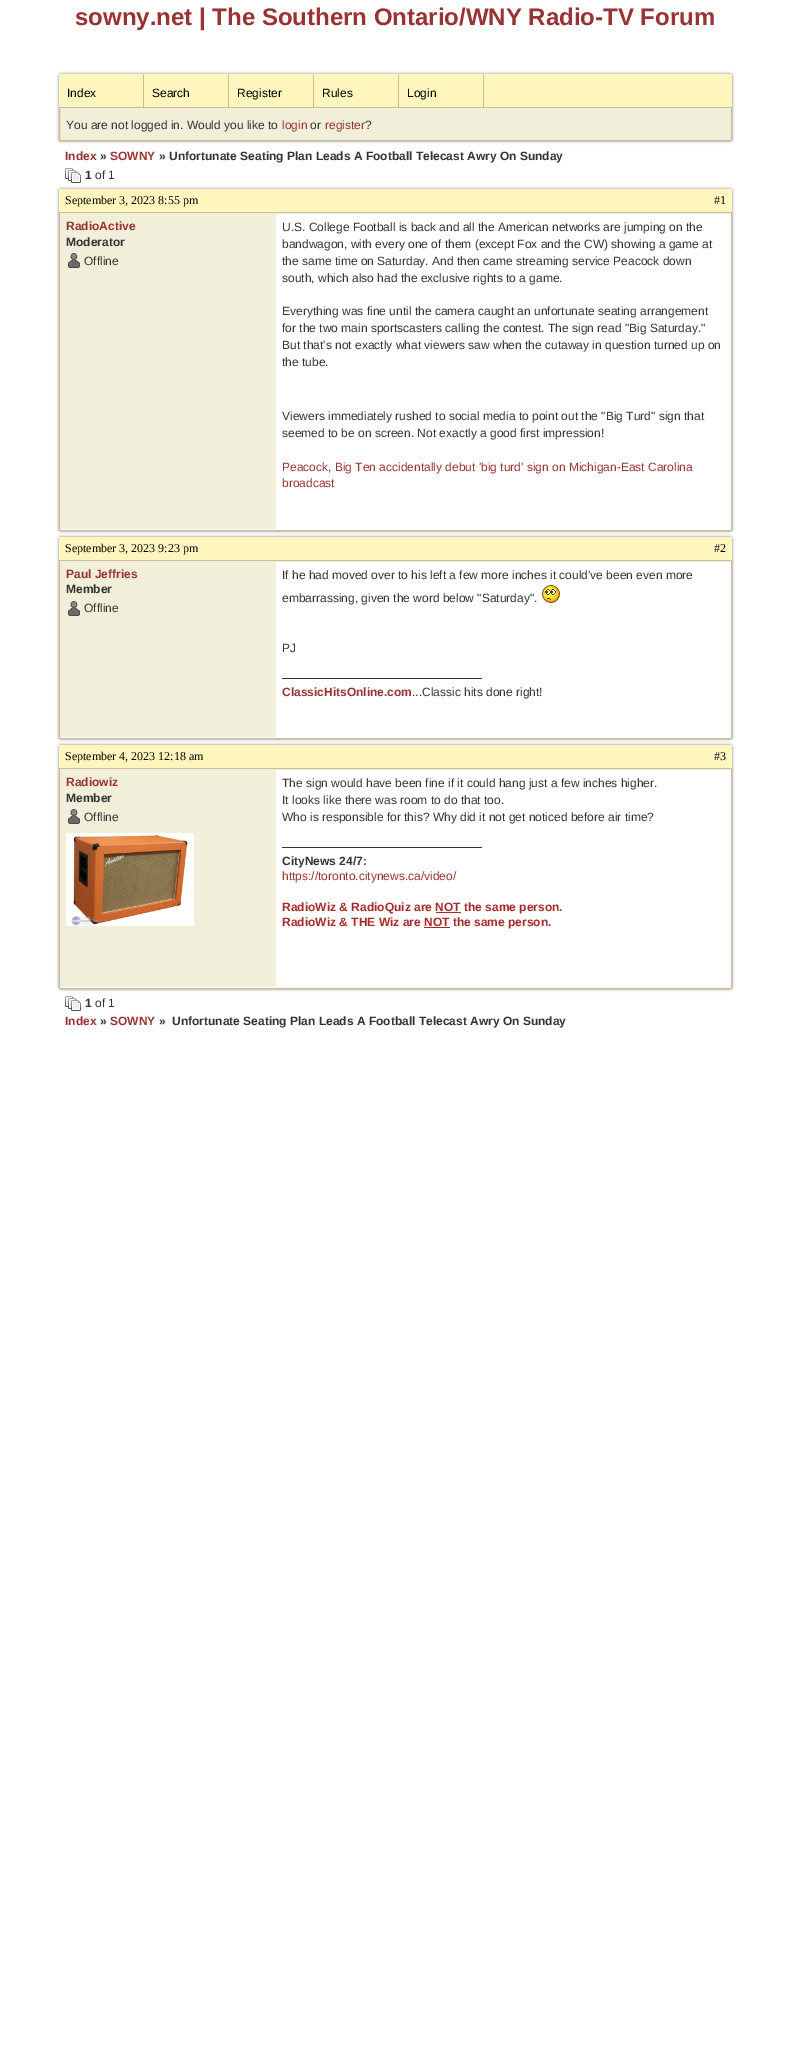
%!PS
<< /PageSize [791 2060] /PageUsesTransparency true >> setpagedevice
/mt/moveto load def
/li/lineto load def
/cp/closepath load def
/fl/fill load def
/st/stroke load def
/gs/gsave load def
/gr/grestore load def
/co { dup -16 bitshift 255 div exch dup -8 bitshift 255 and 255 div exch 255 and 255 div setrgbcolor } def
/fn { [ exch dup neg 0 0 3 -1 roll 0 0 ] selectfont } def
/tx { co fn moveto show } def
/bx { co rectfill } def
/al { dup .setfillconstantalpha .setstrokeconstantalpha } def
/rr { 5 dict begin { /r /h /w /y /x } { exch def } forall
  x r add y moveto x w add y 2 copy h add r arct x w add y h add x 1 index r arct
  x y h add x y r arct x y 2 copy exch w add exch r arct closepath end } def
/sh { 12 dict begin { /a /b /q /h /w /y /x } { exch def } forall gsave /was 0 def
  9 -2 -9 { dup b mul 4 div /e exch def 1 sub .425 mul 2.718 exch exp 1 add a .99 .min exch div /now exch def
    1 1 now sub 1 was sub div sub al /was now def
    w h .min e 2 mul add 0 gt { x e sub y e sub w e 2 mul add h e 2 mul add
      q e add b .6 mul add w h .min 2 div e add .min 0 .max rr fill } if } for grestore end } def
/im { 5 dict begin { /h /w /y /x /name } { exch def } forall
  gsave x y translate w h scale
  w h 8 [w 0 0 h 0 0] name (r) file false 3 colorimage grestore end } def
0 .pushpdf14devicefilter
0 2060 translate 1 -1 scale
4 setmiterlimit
0 0 791 2060 16#FFFFFF bx
16#888888 co
59 74 673 67 2 1.5 1 sh
60 108 671 32 16#F1EED9 bx
16#CCBD99 co
59.5 74.5 672 66 rectstroke
59 74 673 33 16#FFF6BD bx
59 107 673 1 16#CCBD99 bx
143 74 1 33 16#CCBD99 bx
228 74 1 33 16#CCBD99 bx
313 74 1 33 16#CCBD99 bx
398 74 1 33 16#CCBD99 bx
483 74 1 33 16#CCBD99 bx
(media/1.raw) 65 168 16 15 im
16#888888 co
59 189 673 342 2 1.5 1 sh
59 189 673 23 16#FFF6BD bx
16#FFFFFF co
59.5 212.5 mt 731.5 212.5 li 731.5 530.5 li 59.5 530.5 li cp gs fl gr
16#CCBD99 co
st
60 213 216 316 16#F1EED9 bx
(media/2.raw) 68 253 12 15 im
16#888888 co
59 537 673 202 2 1.5 1 sh
59 537 673 23 16#FFF6BD bx
16#FFFFFF co
59.5 560.5 mt 731.5 560.5 li 731.5 738.5 li 59.5 738.5 li cp gs fl gr
16#CCBD99 co
st
60 561 216 176 16#F1EED9 bx
(media/2.raw) 68 601 12 15 im
(media/3.raw) 542 585 18 18 im
282 678 200 1 16#333333 bx
16#888888 co
59 745 673 244 2 1.5 1 sh
59 745 673 23 16#FFF6BD bx
16#FFFFFF co
59.5 768.5 mt 731.5 768.5 li 731.5 988.5 li 59.5 988.5 li cp gs fl gr
16#CCBD99 co
st
60 769 216 218 16#F1EED9 bx
(media/2.raw) 68 809 12 15 im
(media/4.raw) 66 833 128 93 im
282 847 200 1 16#333333 bx
436 912 25 1 16#A52A2A bx
424 927 26 1 16#A52A2A bx
(media/1.raw) 65 996 16 15 im
(sowny.net | The Southern Ontario/WNY Radio-TV Forum) 75 25 /LiberationSans-Bold 24 16#993333 tx
(Index) 67 97 /LiberationSans-Regular 12 16#000000 tx
(Search) 152 97 /LiberationSans-Regular 12 16#000000 tx
(Register) 237 97 /LiberationSans-Regular 12 16#000000 tx
(Rules) 322 97 /LiberationSans-Regular 12 16#000000 tx
(Login) 407 97 /LiberationSans-Regular 12 16#000000 tx
(You are not logged in. Would you like to) 66 129 /LiberationSans-Regular 12 16#333333 tx
(login) 282 129 /LiberationSans-Regular 12 16#993333 tx
(or) 310 129 /LiberationSans-Regular 12 16#333333 tx
(register) 325 129 /LiberationSans-Regular 12 16#993333 tx
(?) 365 129 /LiberationSans-Regular 12 16#333333 tx
(Index) 65 160 /LiberationSans-Bold 12 16#993333 tx
(») 100 160 /LiberationSans-Bold 12 16#333333 tx
(SOWNY) 110 160 /LiberationSans-Bold 12 16#993333 tx
(» Unfortunate Seating Plan Leads A Football Telecast Awry On Sunday) 159 160 /LiberationSans-Bold 12 16#333333 tx
(1) 85 179 /LiberationSans-Bold 12 16#333333 tx
(of 1) 95 179 /LiberationSans-Regular 12 16#333333 tx
(September 3, 2023 8:55 pm) 65 204 /LiberationSerif-Regular 12 16#000000 tx
(#1) 714 204 /LiberationSerif-Regular 12 16#000000 tx
(RadioActive) 66 230 /LiberationSans-Bold 12 16#993333 tx
(Moderator) 66 246 /LiberationSans-Bold 12 16#333333 tx
(Offline) 84 265 /LiberationSans-Regular 12 16#333333 tx
(U.S. College Football is back and all the American networks are jumping on the) 282 231 /LiberationSans-Regular 12 16#333333 tx
(bandwagon, with every one of them \(except Fox and the CW\) showing a game at) 282 248 /LiberationSans-Regular 12 16#333333 tx
(the same time on Saturday. And then came streaming service Peacock down) 282 265 /LiberationSans-Regular 12 16#333333 tx
(south, which also had the exclusive rights to a game.) 282 282 /LiberationSans-Regular 12 16#333333 tx
(Everything was fine until the camera caught an unfortunate seating arrangement) 282 315 /LiberationSans-Regular 12 16#333333 tx
(for the two main sportscasters calling the contest. The sign read "Big Saturday.") 282 332 /LiberationSans-Regular 12 16#333333 tx
(But that's not exactly what viewers saw when the cutaway in question turned up on) 282 349 /LiberationSans-Regular 12 16#333333 tx
(the tube.) 282 366 /LiberationSans-Regular 12 16#333333 tx
(Viewers immediately rushed to social media to point out the "Big Turd" sign that) 282 420 /LiberationSans-Regular 12 16#333333 tx
(seemed to be on screen. Not exactly a good first impression!) 282 437 /LiberationSans-Regular 12 16#333333 tx
(Peacock, Big Ten accidentally debut 'big turd' sign on Michigan-East Carolina) 282 471 /LiberationSans-Regular 12 16#993333 tx
(broadcast) 282 487 /LiberationSans-Regular 12 16#993333 tx
(September 3, 2023 9:23 pm) 65 552 /LiberationSerif-Regular 12 16#000000 tx
(#2) 714 552 /LiberationSerif-Regular 12 16#000000 tx
(Paul Jeffries) 66 578 /LiberationSans-Bold 12 16#993333 tx
(Member) 66 593 /LiberationSans-Bold 12 16#333333 tx
(Offline) 84 612 /LiberationSans-Regular 12 16#333333 tx
(If he had moved over to his left a few more inches it could've been even more) 282 579 /LiberationSans-Regular 12 16#333333 tx
(embarrassing, given the word below "Saturday".) 282 602 /LiberationSans-Regular 12 16#333333 tx
(PJ) 282 652 /LiberationSans-Regular 12 16#333333 tx
(ClassicHitsOnline.com) 282 696 /LiberationSans-Bold 12 16#993333 tx
(...Classic hits done right!) 412 696 /LiberationSans-Regular 12 16#333333 tx
(September 4, 2023 12:18 am) 65 760 /LiberationSerif-Regular 12 16#000000 tx
(#3) 714 760 /LiberationSerif-Regular 12 16#000000 tx
(Radiowiz) 66 786 /LiberationSans-Bold 12 16#993333 tx
(Member) 66 802 /LiberationSans-Bold 12 16#333333 tx
(Offline) 84 821 /LiberationSans-Regular 12 16#333333 tx
(The sign would have been fine if it could hang just a few inches higher.) 282 787 /LiberationSans-Regular 12 16#333333 tx
(It looks like there was room to do that too.) 282 804 /LiberationSans-Regular 12 16#333333 tx
(Who is responsible for this? Why did it not get noticed before air time?) 282 821 /LiberationSans-Regular 12 16#333333 tx
(CityNews 24/7:) 282 865 /LiberationSans-Bold 12 16#333333 tx
(https://toronto.citynews.ca/video/) 282 880 /LiberationSans-Regular 12 16#993333 tx
(RadioWiz & RadioQuiz are NOT the same person.) 282 911 /LiberationSans-Bold 12 16#A52A2A tx
(RadioWiz & THE Wiz are NOT the same person.) 282 926 /LiberationSans-Bold 12 16#A52A2A tx
(1) 85 1007 /LiberationSans-Bold 12 16#333333 tx
(of 1) 95 1007 /LiberationSans-Regular 12 16#333333 tx
(Index) 65 1025 /LiberationSans-Bold 12 16#993333 tx
(») 100 1025 /LiberationSans-Bold 12 16#333333 tx
(SOWNY) 110 1025 /LiberationSans-Bold 12 16#993333 tx
(») 159 1025 /LiberationSans-Bold 12 16#333333 tx
(Unfortunate Seating Plan Leads A Football Telecast Awry On Sunday) 172 1025 /LiberationSans-Bold 12 16#333333 tx
.poppdf14devicefilter showpage
